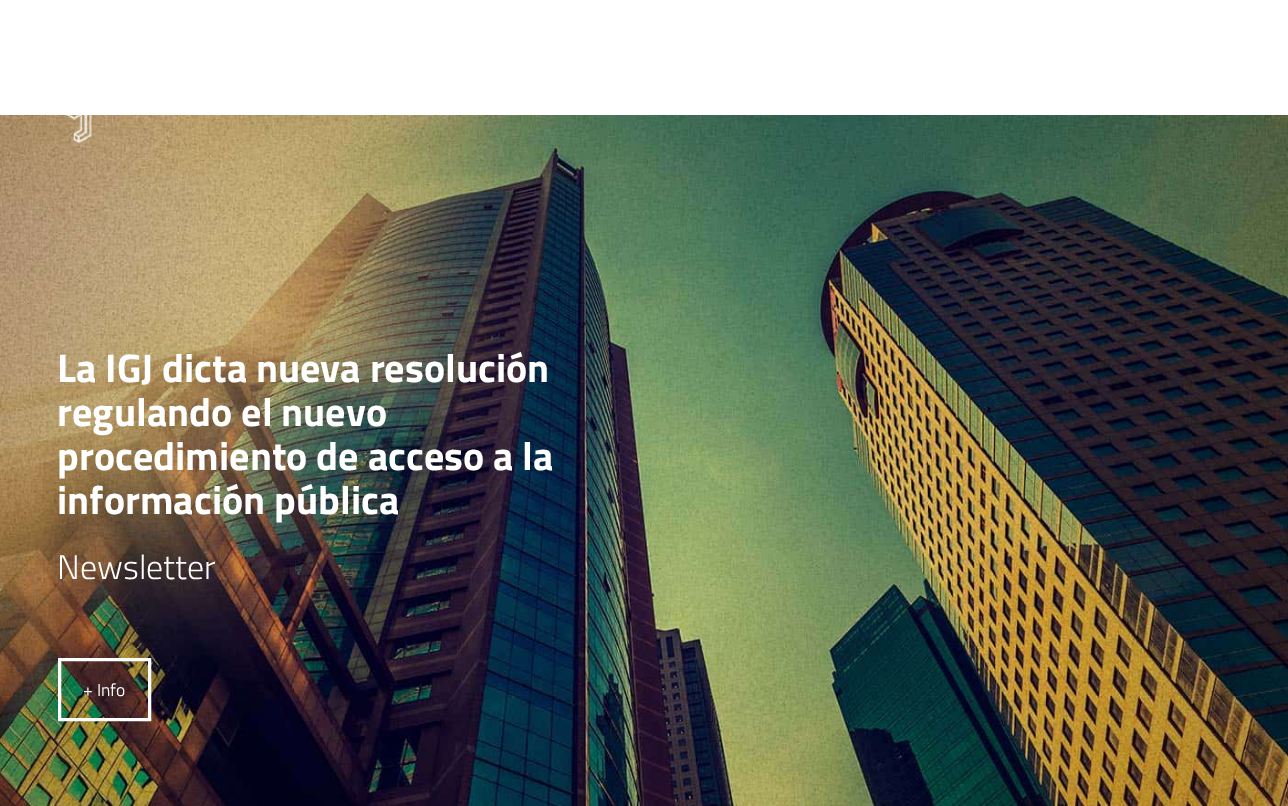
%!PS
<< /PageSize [1288 806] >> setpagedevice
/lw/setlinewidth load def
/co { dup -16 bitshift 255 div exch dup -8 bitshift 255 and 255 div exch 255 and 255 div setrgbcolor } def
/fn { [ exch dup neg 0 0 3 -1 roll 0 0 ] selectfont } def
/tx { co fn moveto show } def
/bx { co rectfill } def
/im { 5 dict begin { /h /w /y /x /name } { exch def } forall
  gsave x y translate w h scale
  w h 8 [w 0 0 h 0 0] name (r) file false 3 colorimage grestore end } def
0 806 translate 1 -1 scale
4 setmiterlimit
0 0 1288 806 16#FFFFFF bx
(media/1.raw) 0 115 1288 691 im
(media/2.raw) 65 115 27 28 im
3 lw
59.5 659.5 90 60 rectstroke
(La IGJ dicta nueva resolución) 57 382 /TitilliumWeb-Bold 40 16#FFFFFF tx
(regulando el nuevo) 57 426 /TitilliumWeb-Bold 40 16#FFFFFF tx
(procedimiento de acceso a la) 57 470 /TitilliumWeb-Bold 40 16#FFFFFF tx
(información pública) 57 514 /TitilliumWeb-Bold 40 16#FFFFFF tx
(Newsletter) 57 579 /TitilliumWeb-Light 34 16#FFFFFF tx
(+ Info) 83 696 /TitilliumWeb-Regular 17.5 16#FFFFFF tx
showpage
